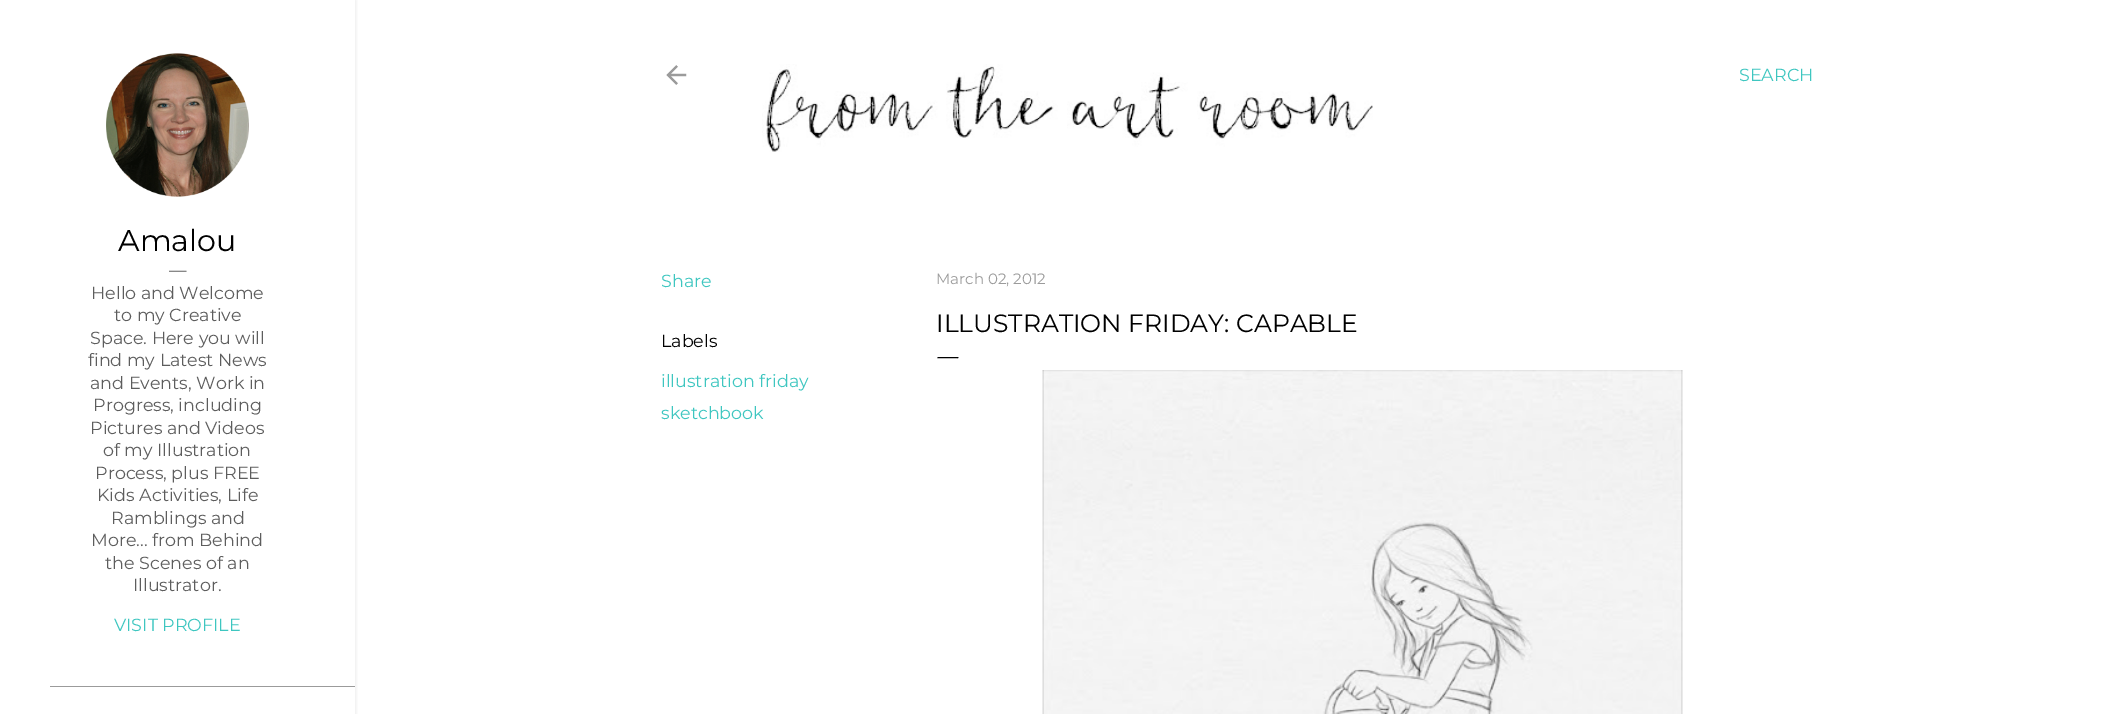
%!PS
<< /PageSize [2119 714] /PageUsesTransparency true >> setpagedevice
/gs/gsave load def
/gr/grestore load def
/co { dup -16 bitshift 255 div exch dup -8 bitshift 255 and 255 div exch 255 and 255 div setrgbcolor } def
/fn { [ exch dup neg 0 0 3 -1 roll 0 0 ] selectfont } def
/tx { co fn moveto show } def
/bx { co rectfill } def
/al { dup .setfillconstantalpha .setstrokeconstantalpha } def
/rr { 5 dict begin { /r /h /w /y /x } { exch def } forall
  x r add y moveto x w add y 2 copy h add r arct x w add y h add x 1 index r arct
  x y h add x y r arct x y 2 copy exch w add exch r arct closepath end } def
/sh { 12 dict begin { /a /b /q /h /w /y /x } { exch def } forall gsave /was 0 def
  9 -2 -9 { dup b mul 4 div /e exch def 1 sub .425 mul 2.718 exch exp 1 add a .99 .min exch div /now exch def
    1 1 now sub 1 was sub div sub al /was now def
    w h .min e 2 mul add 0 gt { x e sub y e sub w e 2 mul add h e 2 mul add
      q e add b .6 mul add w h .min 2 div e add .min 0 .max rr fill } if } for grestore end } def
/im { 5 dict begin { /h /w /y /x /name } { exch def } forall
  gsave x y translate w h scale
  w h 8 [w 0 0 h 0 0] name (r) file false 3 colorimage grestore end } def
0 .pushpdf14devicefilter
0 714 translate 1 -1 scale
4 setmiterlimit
0 0 2119 714 16#FFFFFF bx
gs
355 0 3 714 rectclip
16#444444 co
1 0 355 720 0 2 .1 sh
gr
(media/1.raw) 106 53 143 144 im
50 686 305 1 16#9B9B9B bx
(media/2.raw) 666 65 21 20 im
(media/3.raw) 762 64 611 88 im
(media/4.raw) 1042 370 641 344 im
(Amalou) 118 251 /Montserrat-Regular 30 16#000000 tx
(—) 169 276 /Montserrat-Regular 17.5 16#5D5D5D tx
(Hello and Welcome) 91 299 /Montserrat-Regular 17.5 16#5D5D5D tx
(to my Creative) 114 321 /Montserrat-Regular 17.5 16#5D5D5D tx
(Space. Here you will) 90 344 /Montserrat-Regular 17.5 16#5D5D5D tx
(find my Latest News) 88 366 /Montserrat-Regular 17.5 16#5D5D5D tx
(and Events, Work in) 90 389 /Montserrat-Regular 17.5 16#5D5D5D tx
(Progress, including) 93 411 /Montserrat-Regular 17.5 16#5D5D5D tx
(Pictures and Videos) 90 434 /Montserrat-Regular 17.5 16#5D5D5D tx
(of my Illustration) 103 456 /Montserrat-Regular 17.5 16#5D5D5D tx
(Process, plus FREE) 95 479 /Montserrat-Regular 17.5 16#5D5D5D tx
(Kids Activities, Life) 97 501 /Montserrat-Regular 17.5 16#5D5D5D tx
(Ramblings and) 111 524 /Montserrat-Regular 17.5 16#5D5D5D tx
(More... from Behind) 91 546 /Montserrat-Regular 17.5 16#5D5D5D tx
(the Scenes of an) 105 569 /Montserrat-Regular 17.5 16#5D5D5D tx
(Illustrator.) 133 591 /Montserrat-Regular 17.5 16#5D5D5D tx
(VISIT PROFILE) 114 631 /Montserrat-Regular 17.5 16#3EC6C0 tx
(SEARCH) 1739 81 /Montserrat-Regular 17.5 16#3EC6C0 tx
(Share) 661 287 /Montserrat-Regular 17.5 16#3EC6C0 tx
(Labels) 661 347 /Montserrat-Regular 17.5 16#000000 tx
(illustration friday) 661 387 /Montserrat-Regular 17.5 16#3EC6C0 tx
(sketchbook) 661 419 /Montserrat-Regular 17.5 16#3EC6C0 tx
(March 02, 2012) 936 284 /Montserrat-Regular 15 16#9B9B9B tx
(ILLUSTRATION FRIDAY: CAPABLE) 936 332 /Montserrat-Regular 25 16#000000 tx
(—) 936 363 /EBGaramond-Regular 25 16#000000 tx
.poppdf14devicefilter showpage
